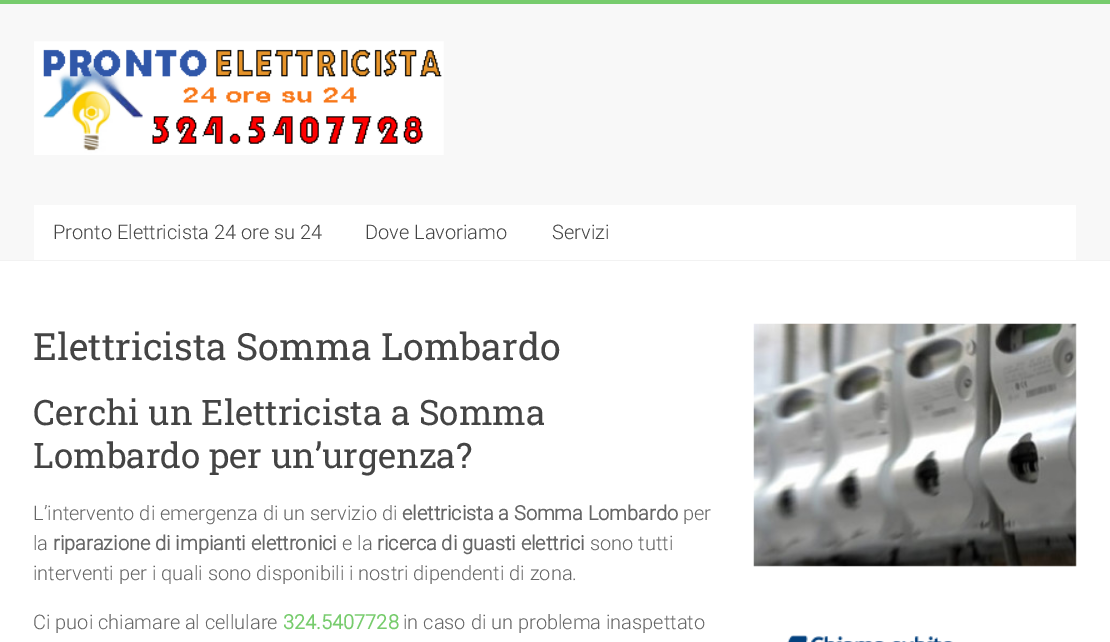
%!PS
<< /PageSize [1110 642] >> setpagedevice
/co { dup -16 bitshift 255 div exch dup -8 bitshift 255 and 255 div exch 255 and 255 div setrgbcolor } def
/fn { [ exch dup neg 0 0 3 -1 roll 0 0 ] selectfont } def
/tx { co fn moveto show } def
/bx { co rectfill } def
/im { 5 dict begin { /h /w /y /x /name } { exch def } forall
  gsave x y translate w h scale
  w h 8 [w 0 0 h 0 0] name (r) file false 3 colorimage grestore end } def
0 642 translate 1 -1 scale
4 setmiterlimit
0 0 1110 642 16#FFFFFF bx
0 0 1110 4 16#77CC6D bx
0 4 1110 256 16#F8F8F8 bx
0 260 1110 1 16#F2F2F2 bx
(media/1.raw) 34 41 410 114 im
34 205 1042 55 16#FFFFFF bx
(media/2.raw) 753 323 324 244 im
(media/3.raw) 787 635 166 7 im
(Pronto Elettricista 24 ore su 24) 53 239 /Roboto-Light 20 16#444444 tx
(Dove Lavoriamo) 365 239 /Roboto-Light 20 16#444444 tx
(Servizi) 552 239 /Roboto-Light 20 16#444444 tx
(Elettricista Somma Lombardo) 33 360 /RobotoSlab-Regular 37.5 16#444444 tx
(Cerchi un Elettricista a Somma) 33 425 /RobotoSlab-Regular 35 16#444444 tx
(Lombardo per un’urgenza?) 33 468 /RobotoSlab-Regular 35 16#444444 tx
(L’intervento di emergenza di un servizio di) 33 520 /Roboto-Light 20 16#666666 tx
(elettricista a Somma Lombardo) 402 520 /Roboto-Bold 20 16#666666 tx
(per) 683 520 /Roboto-Light 20 16#666666 tx
(la) 33 550 /Roboto-Light 20 16#666666 tx
(riparazione di impianti elettronici) 53 550 /Roboto-Bold 20 16#666666 tx
(e la) 342 550 /Roboto-Light 20 16#666666 tx
(ricerca di guasti elettrici) 377 550 /Roboto-Bold 20 16#666666 tx
(sono tutti) 590 550 /Roboto-Light 20 16#666666 tx
(interventi per i quali sono disponibili i nostri dipendenti di zona.) 33 580 /Roboto-Light 20 16#666666 tx
(Ci puoi chiamare al cellulare) 33 629 /Roboto-Light 20 16#666666 tx
(324.5407728) 283 629 /Roboto-Bold 20 16#77CC6D tx
(in caso di un problema inaspettato) 403 629 /Roboto-Light 20 16#666666 tx
showpage
